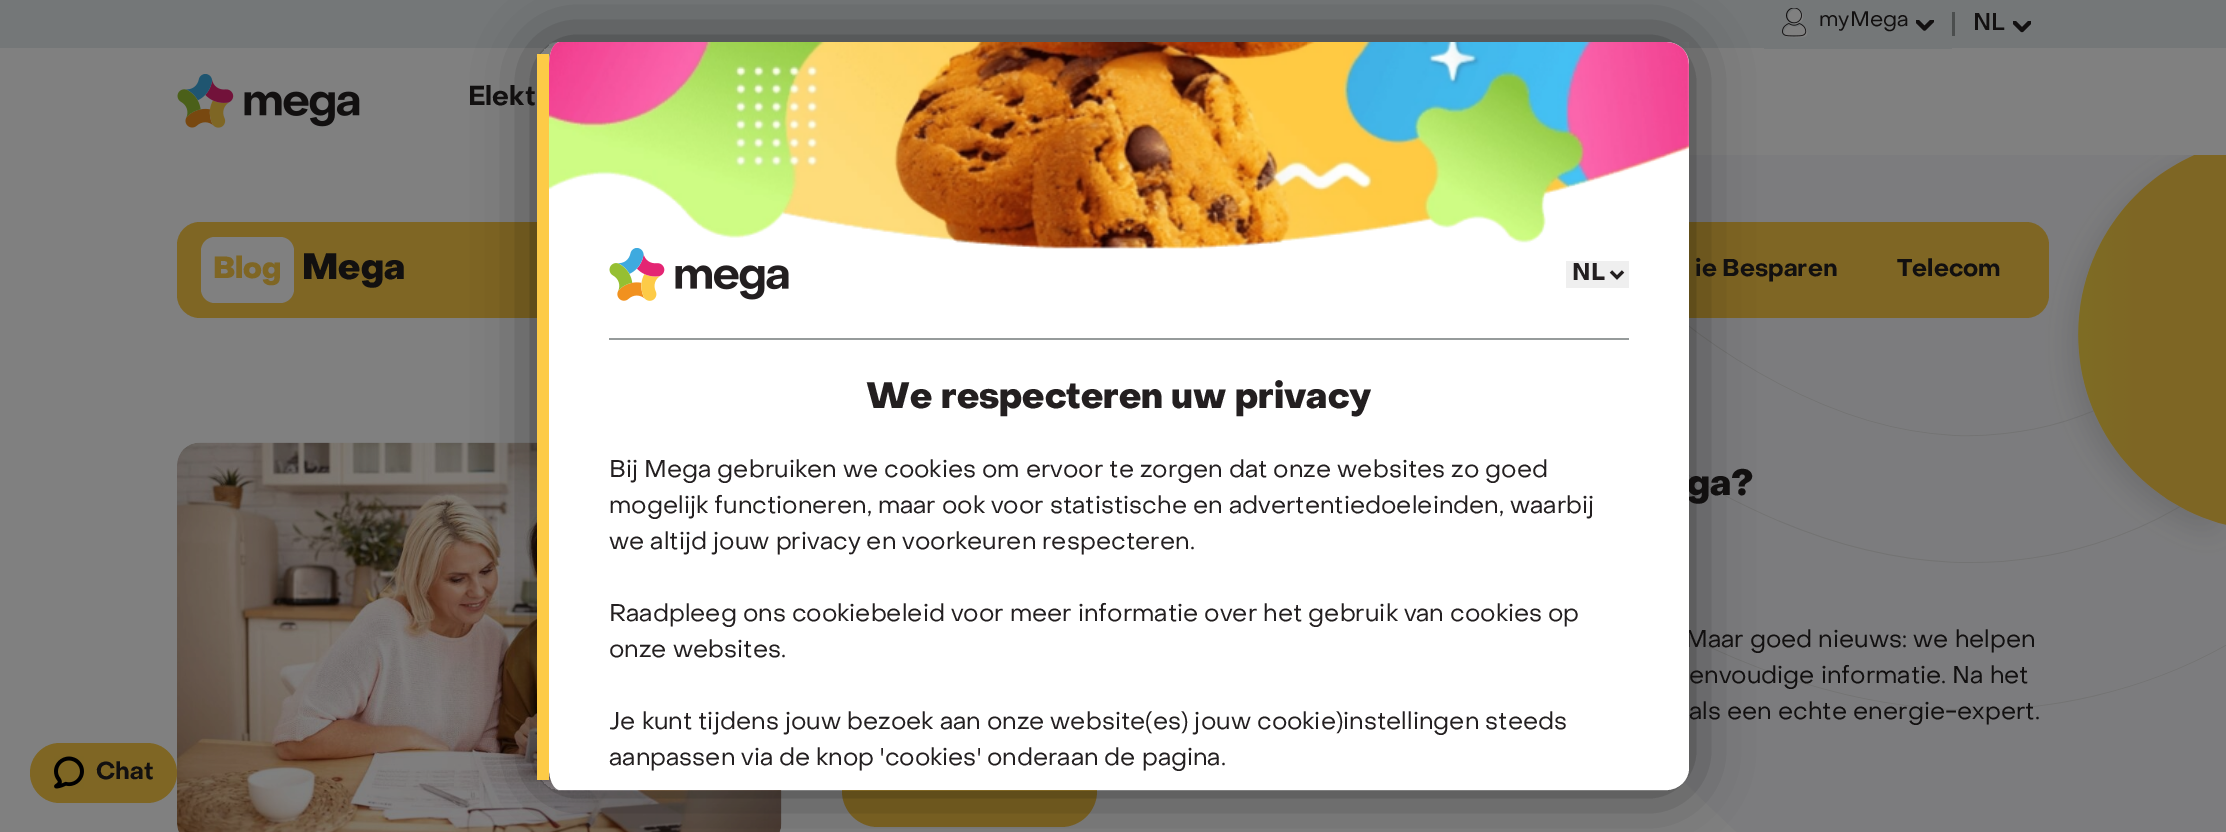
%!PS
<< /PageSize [2226 832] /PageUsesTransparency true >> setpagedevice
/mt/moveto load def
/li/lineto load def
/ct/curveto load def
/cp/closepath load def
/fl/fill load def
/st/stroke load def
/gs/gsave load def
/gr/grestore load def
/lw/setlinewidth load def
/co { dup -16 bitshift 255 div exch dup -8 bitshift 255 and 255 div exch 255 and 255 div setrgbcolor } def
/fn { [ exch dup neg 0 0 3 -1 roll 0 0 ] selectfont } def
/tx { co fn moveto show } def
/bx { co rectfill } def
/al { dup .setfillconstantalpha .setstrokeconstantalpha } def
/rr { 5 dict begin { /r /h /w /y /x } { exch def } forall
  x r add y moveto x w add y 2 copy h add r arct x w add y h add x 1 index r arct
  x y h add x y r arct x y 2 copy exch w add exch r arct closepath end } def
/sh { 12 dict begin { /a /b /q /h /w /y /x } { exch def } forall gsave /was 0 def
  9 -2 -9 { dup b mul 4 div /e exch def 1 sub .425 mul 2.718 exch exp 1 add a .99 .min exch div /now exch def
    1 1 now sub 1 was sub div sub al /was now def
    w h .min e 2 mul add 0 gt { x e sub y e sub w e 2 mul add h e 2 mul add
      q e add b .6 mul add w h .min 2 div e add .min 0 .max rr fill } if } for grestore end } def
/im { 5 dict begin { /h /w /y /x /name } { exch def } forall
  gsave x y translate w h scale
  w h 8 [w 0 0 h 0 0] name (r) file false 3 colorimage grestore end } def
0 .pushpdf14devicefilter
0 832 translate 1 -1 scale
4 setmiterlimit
0 0 2226 832 16#808080 bx
0 0 2226 48 16#747778 bx
1764 48 188 1 16#747778 bx
(media/1.raw) 1782 8 26 30 im
gs
1916 20 18 12 rectclip
16#121010 co
4.2 lw
1 setlinecap
1 setlinejoin
1917 21 mt 1924.5 28.5 li 1932 21 li st
gr
1952 12 3 24 16#4B4E4E bx
gs
2013 21 18 12 rectclip
16#121010 co
4.2 lw
1 setlinecap
1 setlinejoin
2014.5 22.5 mt 2022 30 li 2029.5 22.5 li st
gr
(media/2.raw) 177 74 183 54 im
(media/3.raw) 1683 155 543 677 im
16#7F6624 co
177 222 1872 96 23 rr fl
16#808080 co
201 237 93 66 14 rr fl
(media/4.raw) 177 442 605 390 im
16#7F6624 co
842 755 255 72 36 rr fl
30 743 147 60 30 rr fl
(media/5.raw) 54 756 30 33 im
gs
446 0 mt 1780 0 li 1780 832 li 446 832 li cp 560 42 mt 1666 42 li 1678.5 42 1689 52.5 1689 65 ct 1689 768 li 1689 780.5 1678.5 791 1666 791 ct 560 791 li 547.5 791 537 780.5 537 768 ct 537 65 li 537 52.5 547.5 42 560 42 ct cp eoclip newpath
16#000000 co
537 42 1152 749 23 30 .5 sh
gr
537 54 12 726 16#FDCB47 bx
(myMega) 1819 26 /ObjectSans-Regular 21 16#121010 tx
(NL) 1973 30 /ObjectSans-Medium 24 16#121010 tx
(Elekt) 468 105 /ObjectSans-Bold 27 16#121010 tx
(Blog) 213 278 /ObjectSans-Black 30 16#7F6624 tx
(Mega) 302 279 /ObjectSans-Black 36 16#121010 tx
(ie Besparen) 1695 276 /ObjectSans-Bold 24 16#121010 tx
(Telecom) 1897 276 /ObjectSans-Bold 24 16#121010 tx
(ga?) 1687 495 /ObjectSans-Black 36 16#121010 tx
(Maar goed nieuws: we helpen) 1685 647 /ObjectSans-Regular 24 16#121010 tx
(envoudige informatie. Na het) 1689 683 /ObjectSans-Regular 24 16#121010 tx
(als een echte energie-expert.) 1689 719 /ObjectSans-Regular 24 16#121010 tx
(Chat) 96 779 /ObjectSans-Bold 24 16#121010 tx
16#FFFFFF co
560 42 mt 1666 42 li 1679 42 1689 52 1689 64 ct 1689 768 li 1689 780 1679 790 1666 790 ct 560 790 li 554 790 549 780 549 768 ct 549 64 li 549 52 554 42 560 42 ct cp fl
(media/6.raw) 549 42 1140 207 im
(media/7.raw) 609 248 180 53 im
1566 261 63 27 16#EFEFEF bx
16#231F20 co
3 lw
1611 271.5 mt 1617 277.5 li 1623 271.5 li st
(NL) 1572 280 /ObjectSans-Bold 24 16#231F20 tx
609 338 1020 2 16#969B9B bx
(We respecteren uw privacy) 866 408 /ObjectSans-Black 36 16#231F20 tx
(Bij Mega gebruiken we cookies om ervoor te zorgen dat onze websites zo goed) 609 477 /ObjectSans-Regular 24 16#231F20 tx
(mogelijk functioneren, maar ook voor statistische en advertentiedoeleinden, waarbij) 609 513 /ObjectSans-Regular 24 16#231F20 tx
(we altijd jouw privacy en voorkeuren respecteren.) 609 549 /ObjectSans-Regular 24 16#231F20 tx
(Raadpleeg ons cookiebeleid voor meer informatie over het gebruik van cookies op) 609 621 /ObjectSans-Regular 24 16#231F20 tx
(onze websites.) 609 657 /ObjectSans-Regular 24 16#231F20 tx
(Je kunt tijdens jouw bezoek aan onze website\(es\) jouw cookie\)instellingen steeds) 609 729 /ObjectSans-Regular 24 16#231F20 tx
(aanpassen via de knop 'cookies' onderaan de pagina.) 609 765 /ObjectSans-Regular 24 16#231F20 tx
.poppdf14devicefilter showpage
